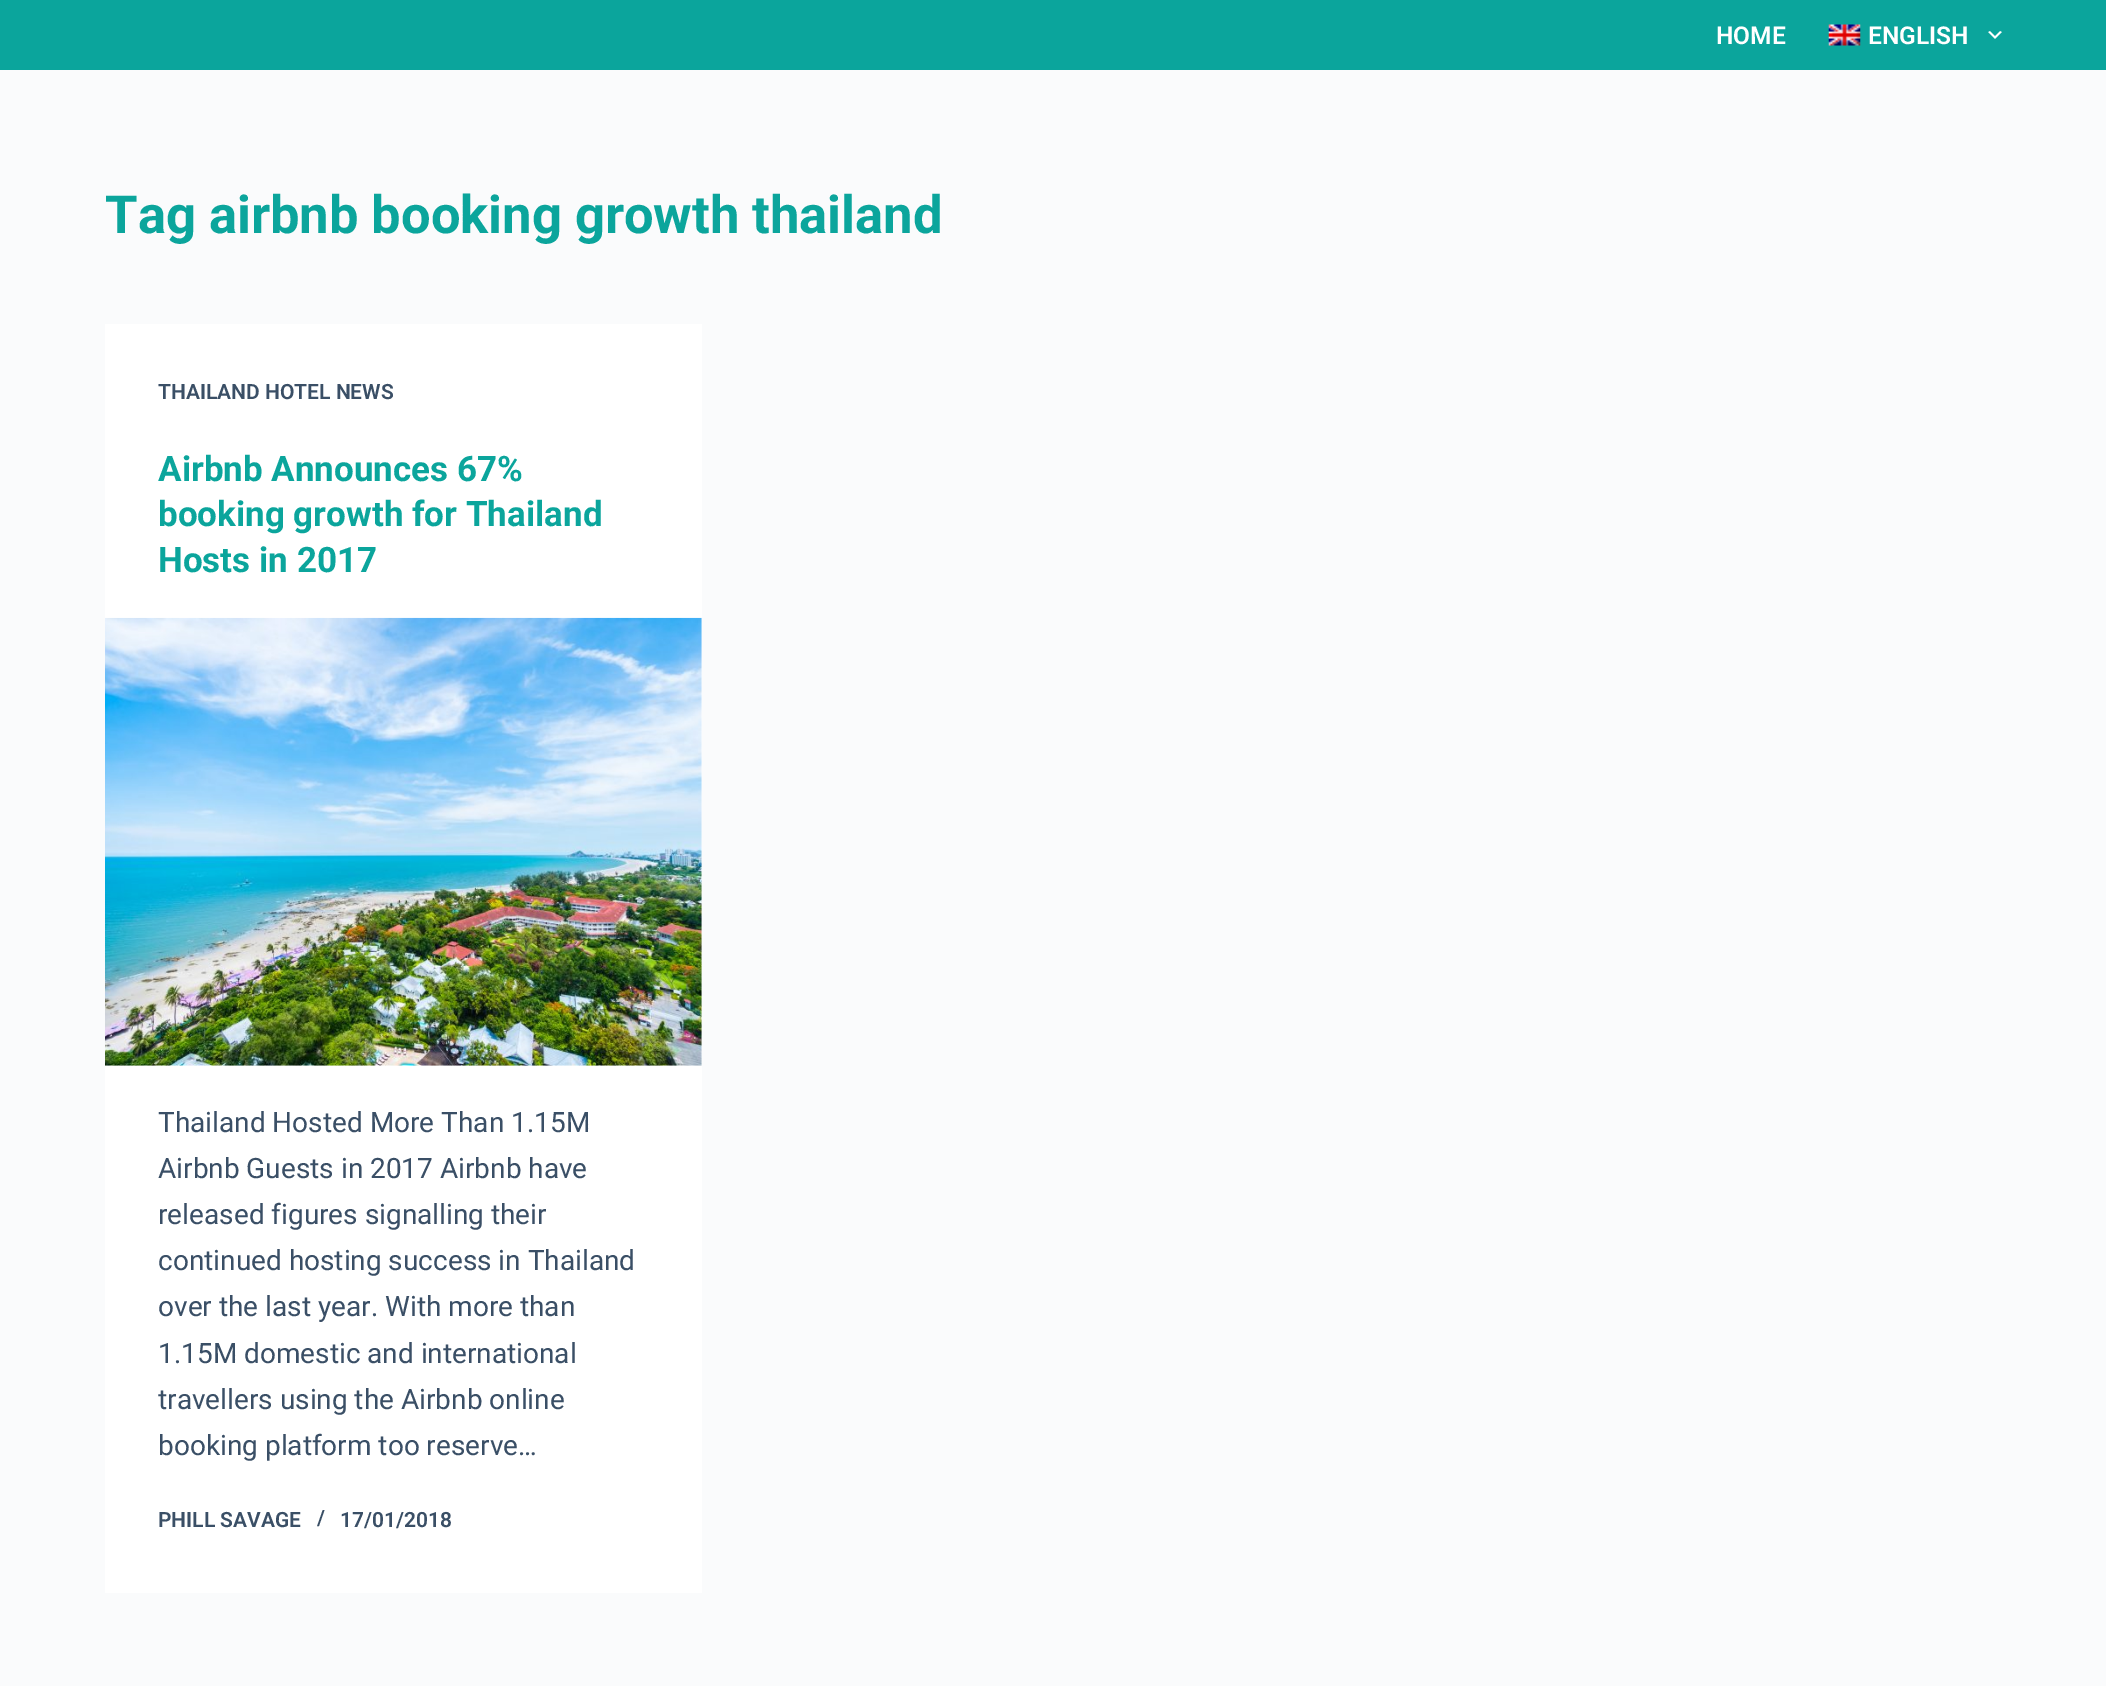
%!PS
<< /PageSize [2106 1686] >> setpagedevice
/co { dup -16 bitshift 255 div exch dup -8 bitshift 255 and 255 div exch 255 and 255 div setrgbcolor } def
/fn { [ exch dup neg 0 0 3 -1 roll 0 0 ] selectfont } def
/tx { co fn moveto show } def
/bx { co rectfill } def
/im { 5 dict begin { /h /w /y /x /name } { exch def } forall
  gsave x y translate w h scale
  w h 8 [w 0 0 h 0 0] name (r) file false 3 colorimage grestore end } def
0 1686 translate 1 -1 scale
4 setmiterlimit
0 0 2106 1686 16#FAFBFC bx
0 0 2106 70 16#0BA59C bx
(media/1.raw) 1828 24 33 22 im
(media/2.raw) 1988 31 14 8 im
105 324 597 1269 16#FFFFFF bx
(media/3.raw) 105 617 597 449 im
(HOME) 1716 44 /Roboto-SemiBold 24.5 16#FFFFFF tx
(ENGLISH) 1868 44 /Roboto-SemiBold 24.5 16#FFFFFF tx
(Tag airbnb booking growth thailand) 105 233 /Roboto-Bold 52.5 16#0BA59C tx
(THAILAND HOTEL NEWS) 158 399 /Roboto-SemiBold 21 16#3A4F66 tx
(Airbnb Announces 67%) 158 481 /Roboto-Bold 35 16#0BA59C tx
(booking growth for Thailand) 158 526 /Roboto-Bold 35 16#0BA59C tx
(Hosts in 2017) 158 572 /Roboto-Bold 35 16#0BA59C tx
(Thailand Hosted More Than 1.15M) 158 1132 /Roboto-Regular 28 16#3A4F66 tx
(Airbnb Guests in 2017 Airbnb have) 158 1178 /Roboto-Regular 28 16#3A4F66 tx
(released figures signalling their) 158 1224 /Roboto-Regular 28 16#3A4F66 tx
(continued hosting success in Thailand) 158 1270 /Roboto-Regular 28 16#3A4F66 tx
(over the last year. With more than) 158 1316 /Roboto-Regular 28 16#3A4F66 tx
(1.15M domestic and international) 158 1363 /Roboto-Regular 28 16#3A4F66 tx
(travellers using the Airbnb online) 158 1409 /Roboto-Regular 28 16#3A4F66 tx
(booking platform too reserve…) 158 1455 /Roboto-Regular 28 16#3A4F66 tx
(PHILL SAVAGE) 158 1527 /Roboto-SemiBold 21 16#3A4F66 tx
(/) 317 1525 /Roboto-SemiBold 21 16#3A4F66 tx
(17/01/2018) 340 1527 /Roboto-SemiBold 21 16#3A4F66 tx
showpage
